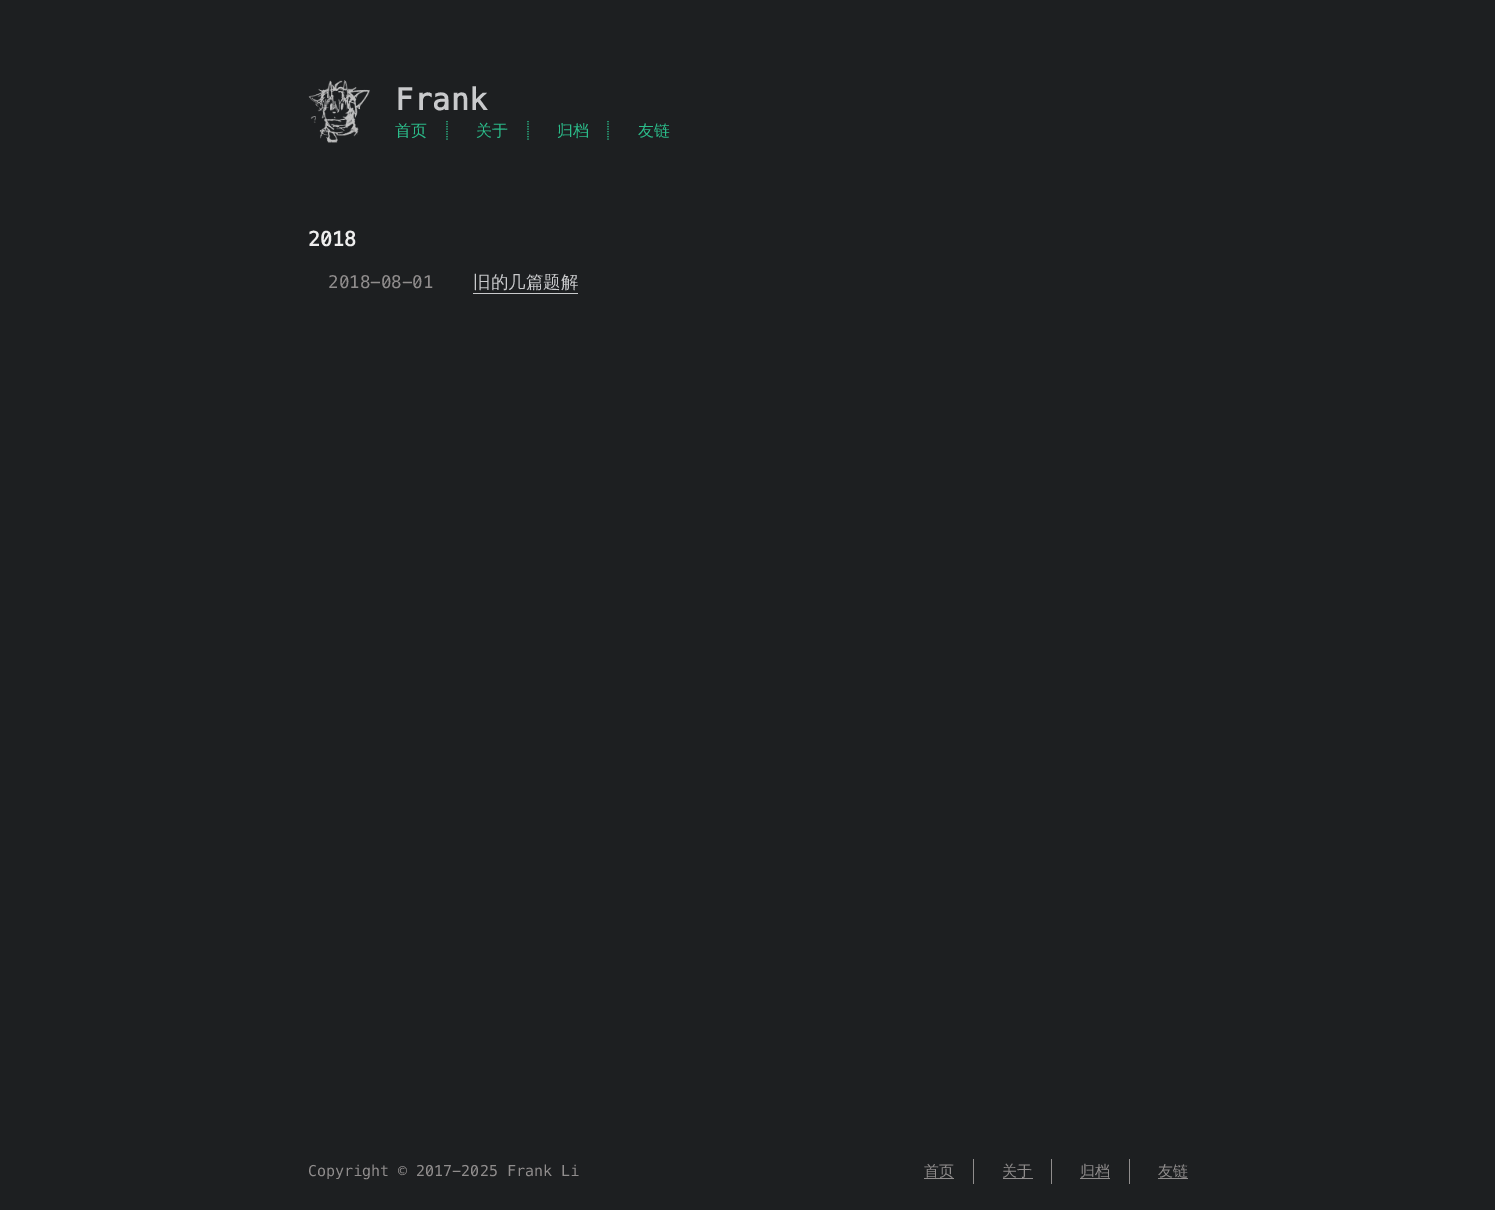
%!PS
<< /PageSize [1495 1210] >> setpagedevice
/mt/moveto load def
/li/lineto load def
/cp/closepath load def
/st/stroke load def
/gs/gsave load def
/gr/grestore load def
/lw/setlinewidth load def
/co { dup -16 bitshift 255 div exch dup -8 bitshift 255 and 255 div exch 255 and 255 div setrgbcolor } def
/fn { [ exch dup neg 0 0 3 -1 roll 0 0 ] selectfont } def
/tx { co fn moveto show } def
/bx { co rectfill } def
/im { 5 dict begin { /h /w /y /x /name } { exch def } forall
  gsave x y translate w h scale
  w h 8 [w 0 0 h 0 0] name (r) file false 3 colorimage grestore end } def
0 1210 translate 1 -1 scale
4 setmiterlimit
0 0 1495 1210 16#1D1F21 bx
(media/1.raw) 308 80 62 63 im
16#2BBC8A co
1.2 lw
[1.25 1.25] 0 setdash
447 121 mt 447 140 li st
528 121 mt 528 140 li st
608 121 mt 608 140 li st
gs 473 293 mt 578 293 li 578 294 li 473 294 li cp clip newpath
<< /ShadingType 2 /ColorSpace /DeviceRGB /Coords [525 286 525 294] /Extend [true true] /Function << /FunctionType 3 /Domain [0 1] /Functions [<< /FunctionType 2 /Domain [0 1] /C0 [.114 .122 .129] /C1 [.114 .122 .129] /N 1 >> << /FunctionType 2 /Domain [0 1] /C0 [.788 .792 .8] /C1 [.788 .792 .8] /N 1 >>] /Bounds [.83] /Encode [0 1 0 1] >> >> shfill gr
973 1159 1 25 16#908D8D bx
924 1178 30 1 16#908D8D bx
1051 1159 1 25 16#908D8D bx
1003 1178 30 1 16#908D8D bx
1129 1159 1 25 16#908D8D bx
1080 1178 30 1 16#908D8D bx
1158 1178 30 1 16#908D8D bx
/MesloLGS-Bold 30 fn
16#C9CACC co
395 110 mt .5 0 (Frank) ashow
(首页) 395 136 /WenQuanYiZenHei-Medium 16 16#2BBC8A tx
(关于) 476 136 /WenQuanYiZenHei-Medium 16 16#2BBC8A tx
(归档) 557 136 /WenQuanYiZenHei-Medium 16 16#2BBC8A tx
(友链) 638 136 /WenQuanYiZenHei-Medium 16 16#2BBC8A tx
(2018) 308 246 /MesloLGS-Bold 20 16#EEEEEE tx
(2018-08-01) 328 288 /MesloLGS-Regular 17.5 16#908D8D tx
(旧的几篇题解) 473 288 /WenQuanYiZenHei-Medium 17.5 16#C9CACC tx
(Copyright © 2017-2025 Frank Li) 308 1176 /MesloLGS-Regular 15 16#908D8D tx
(首页) 924 1176 /WenQuanYiZenHei-Medium 15 16#908D8D tx
(关于) 1002 1176 /WenQuanYiZenHei-Medium 15 16#908D8D tx
(归档) 1080 1176 /WenQuanYiZenHei-Medium 15 16#908D8D tx
(友链) 1158 1176 /WenQuanYiZenHei-Medium 15 16#908D8D tx
showpage
